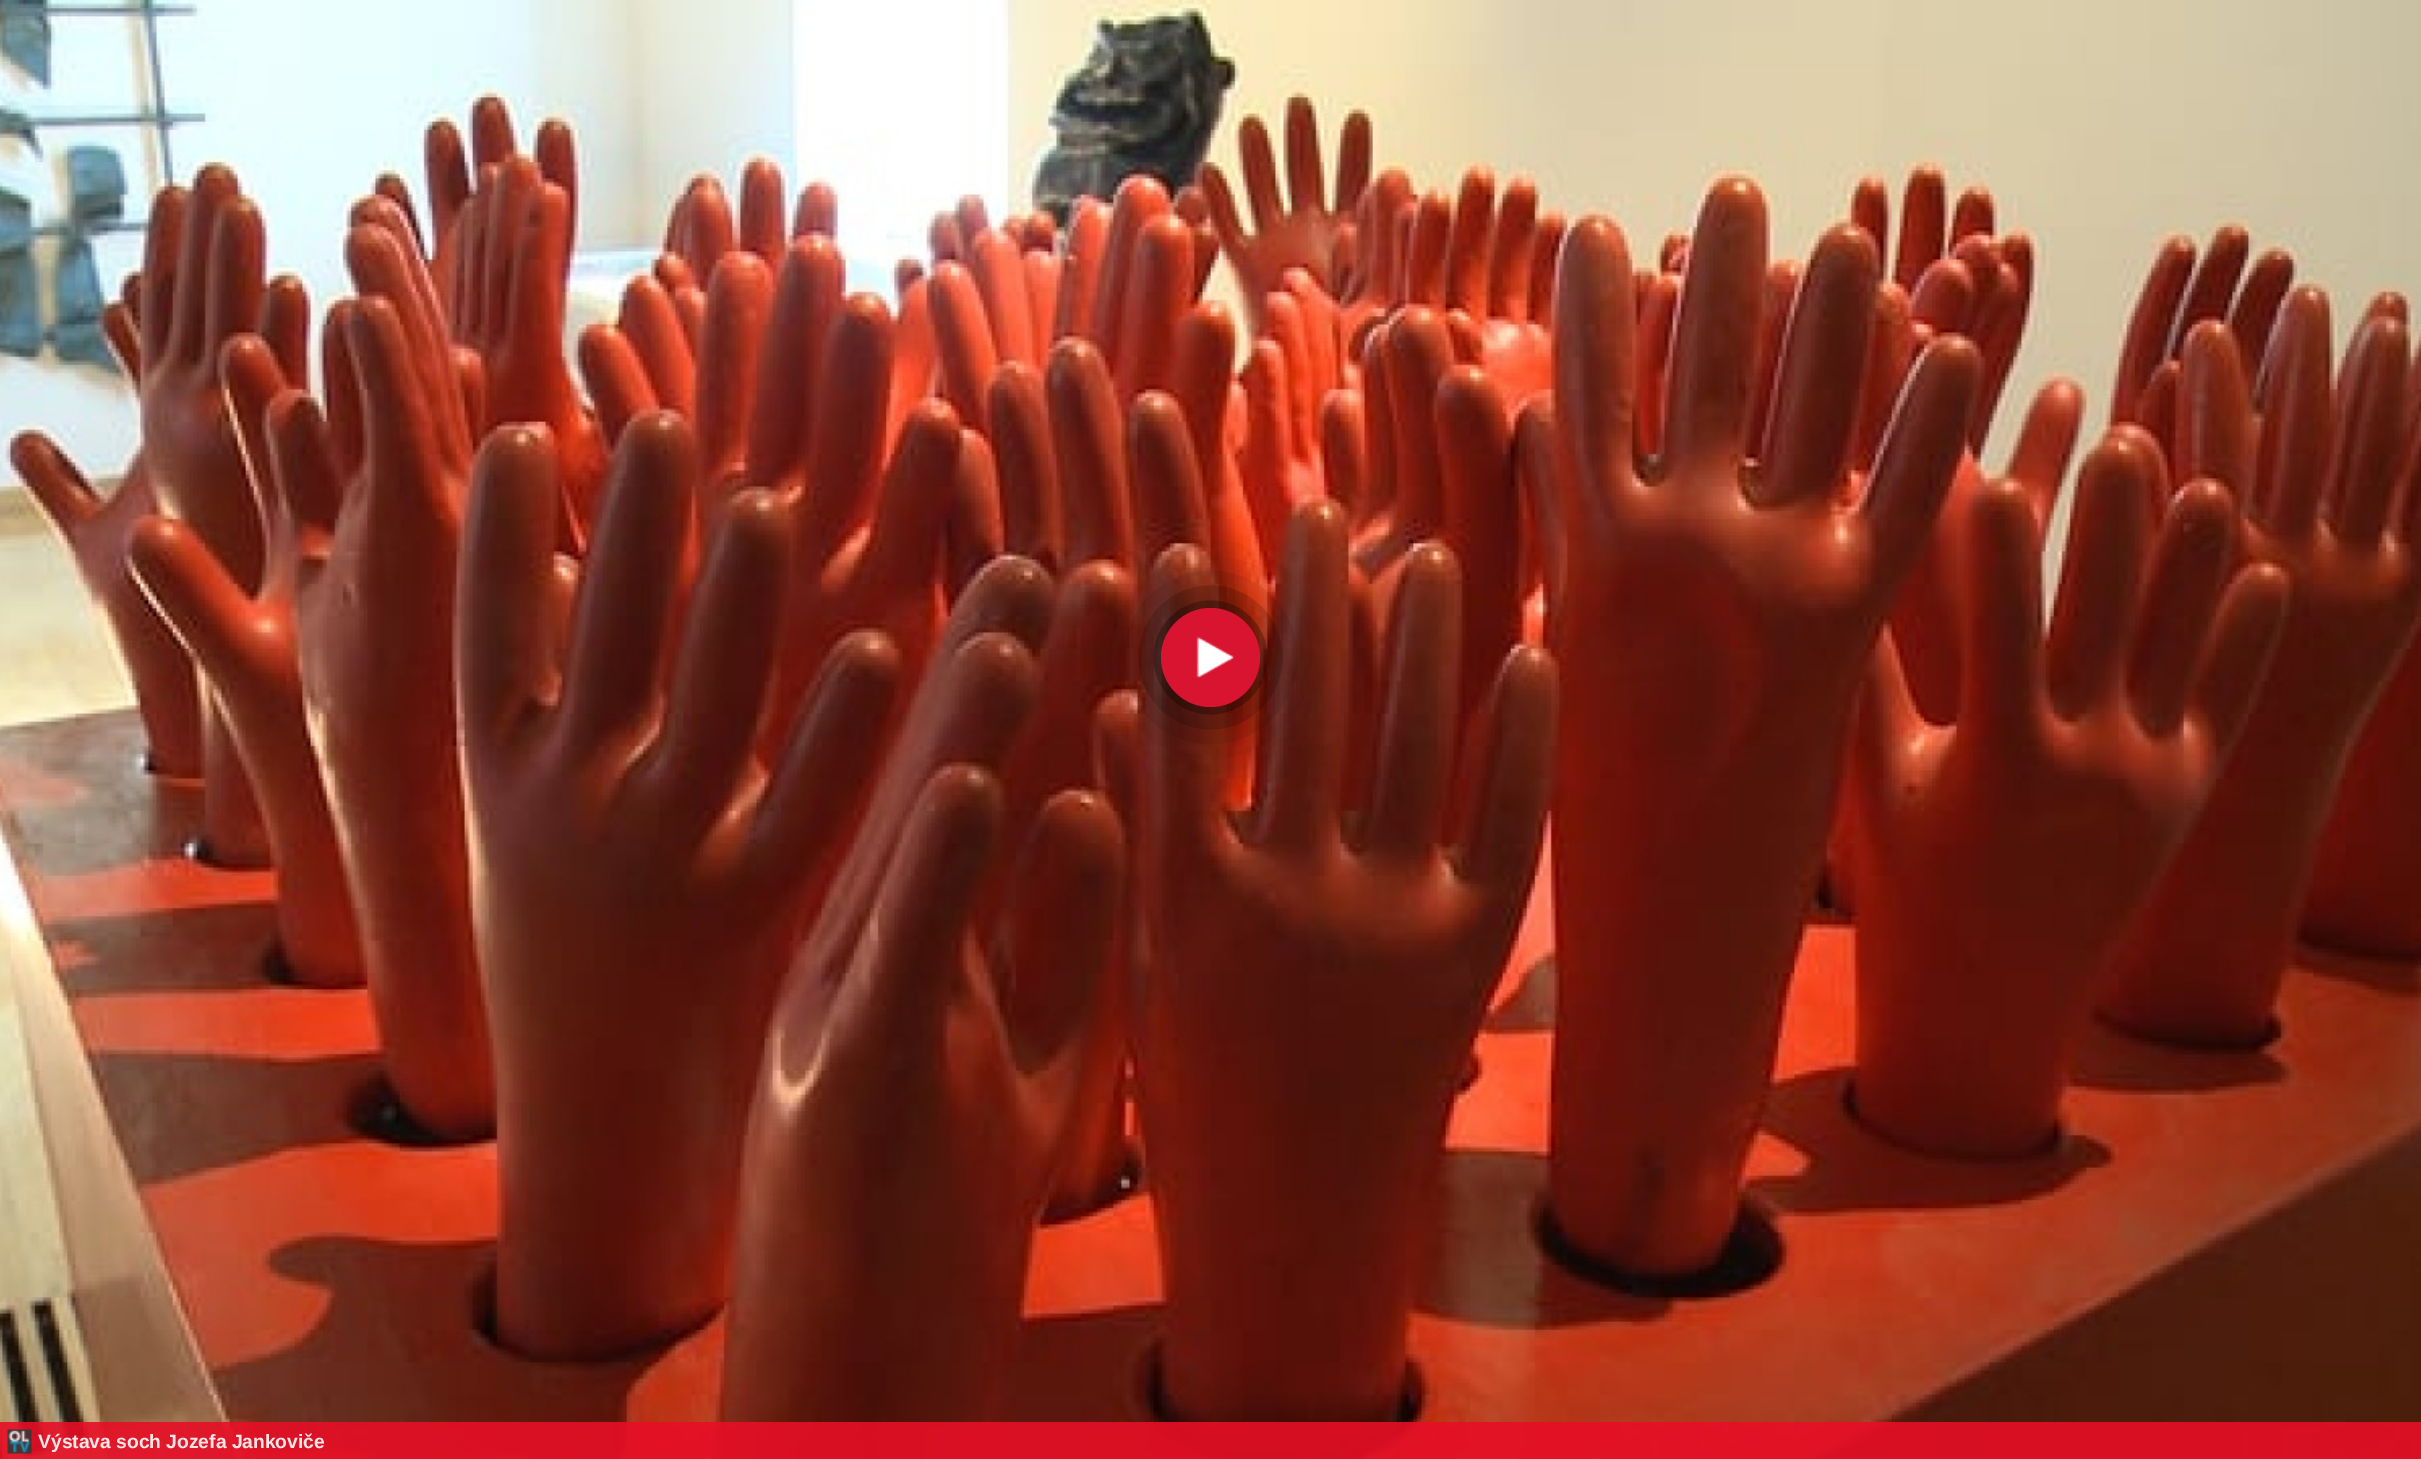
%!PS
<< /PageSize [2421 1459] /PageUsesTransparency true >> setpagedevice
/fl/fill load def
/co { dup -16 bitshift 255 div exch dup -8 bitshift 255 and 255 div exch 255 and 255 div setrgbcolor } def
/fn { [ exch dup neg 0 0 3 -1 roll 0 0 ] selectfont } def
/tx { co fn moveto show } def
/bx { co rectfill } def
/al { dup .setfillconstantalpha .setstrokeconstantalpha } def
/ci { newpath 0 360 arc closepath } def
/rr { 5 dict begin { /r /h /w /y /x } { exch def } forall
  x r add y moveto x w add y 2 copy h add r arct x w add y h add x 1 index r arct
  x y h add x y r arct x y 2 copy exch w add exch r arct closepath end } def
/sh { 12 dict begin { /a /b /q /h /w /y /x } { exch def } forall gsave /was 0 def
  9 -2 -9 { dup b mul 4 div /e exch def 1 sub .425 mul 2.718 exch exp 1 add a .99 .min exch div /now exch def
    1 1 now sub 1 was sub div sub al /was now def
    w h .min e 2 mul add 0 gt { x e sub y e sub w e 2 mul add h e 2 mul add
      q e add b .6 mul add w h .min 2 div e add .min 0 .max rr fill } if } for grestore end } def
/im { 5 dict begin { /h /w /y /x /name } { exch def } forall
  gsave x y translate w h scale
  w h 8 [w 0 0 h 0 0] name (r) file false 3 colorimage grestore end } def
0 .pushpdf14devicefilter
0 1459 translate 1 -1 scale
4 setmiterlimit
0 0 2421 1459 16#FFFFFF bx
(media/1.raw) 0 0 2421 1459 im
16#000000 co
1161 608 99 99 49.5 30 1 sh
16#D91430 co
1210.5 657.5 49.5 ci fl
(media/2.raw) 1196 637 38 41 im
0.9 al
0 1422 2421 37 16#E70E25 bx
1 al
(media/3.raw) 7 1429 25 25 im
(Výstava soch Jozefa Jankoviče) 38 1448 /LiberationSans-Bold 19.25 16#FCE8E9 tx
.poppdf14devicefilter showpage
